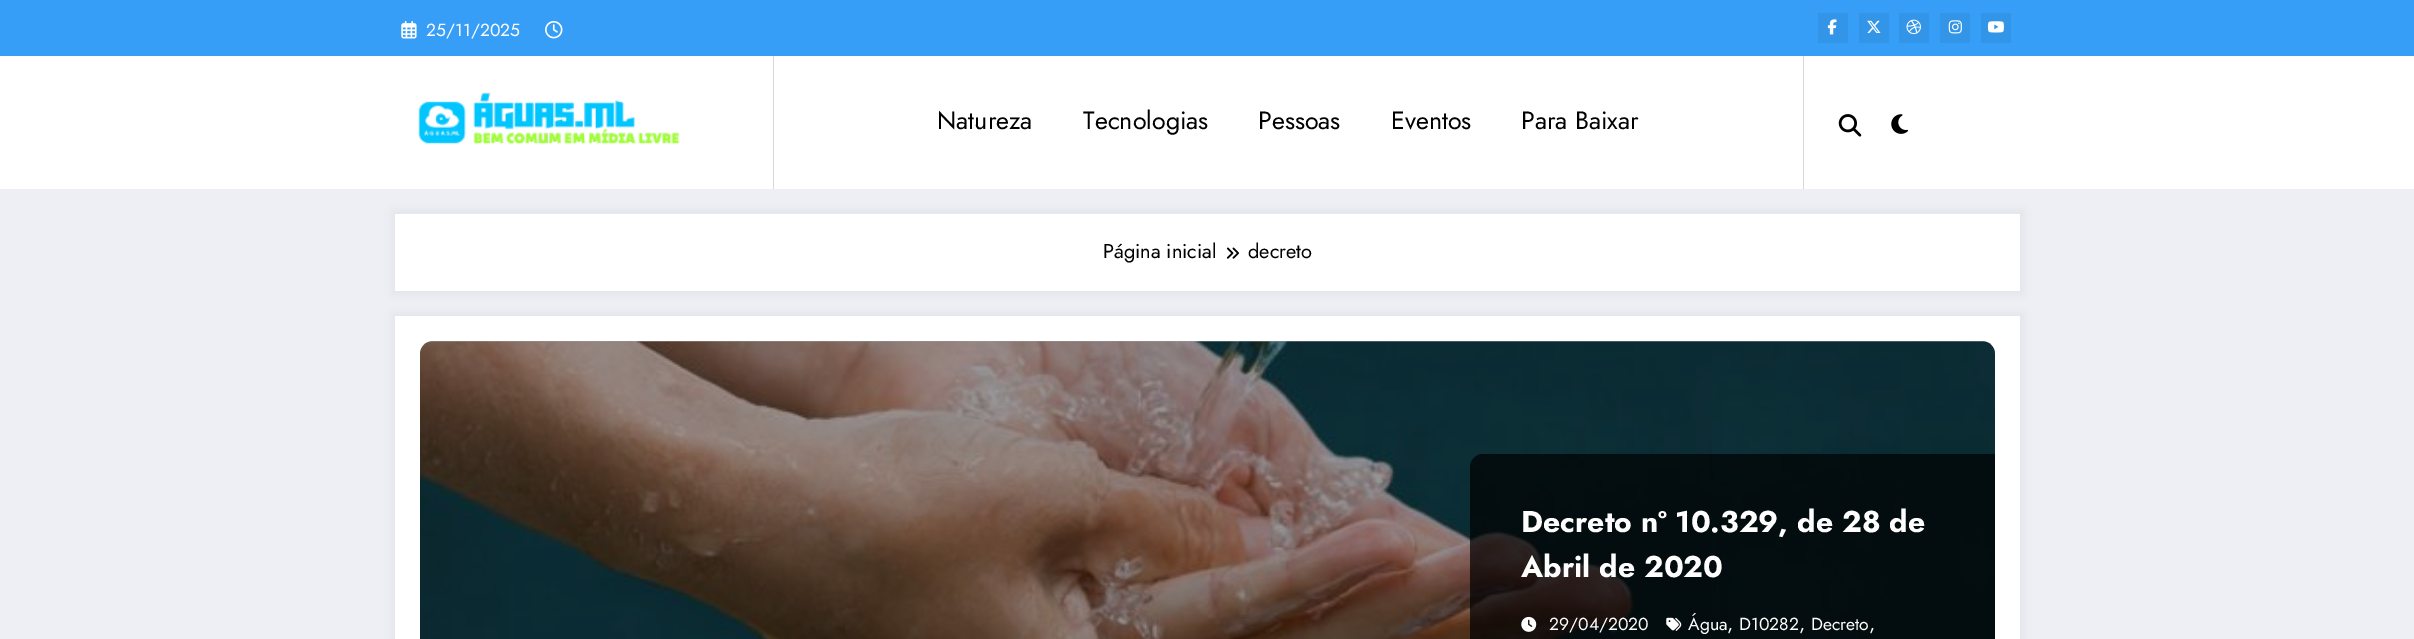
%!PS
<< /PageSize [2414 639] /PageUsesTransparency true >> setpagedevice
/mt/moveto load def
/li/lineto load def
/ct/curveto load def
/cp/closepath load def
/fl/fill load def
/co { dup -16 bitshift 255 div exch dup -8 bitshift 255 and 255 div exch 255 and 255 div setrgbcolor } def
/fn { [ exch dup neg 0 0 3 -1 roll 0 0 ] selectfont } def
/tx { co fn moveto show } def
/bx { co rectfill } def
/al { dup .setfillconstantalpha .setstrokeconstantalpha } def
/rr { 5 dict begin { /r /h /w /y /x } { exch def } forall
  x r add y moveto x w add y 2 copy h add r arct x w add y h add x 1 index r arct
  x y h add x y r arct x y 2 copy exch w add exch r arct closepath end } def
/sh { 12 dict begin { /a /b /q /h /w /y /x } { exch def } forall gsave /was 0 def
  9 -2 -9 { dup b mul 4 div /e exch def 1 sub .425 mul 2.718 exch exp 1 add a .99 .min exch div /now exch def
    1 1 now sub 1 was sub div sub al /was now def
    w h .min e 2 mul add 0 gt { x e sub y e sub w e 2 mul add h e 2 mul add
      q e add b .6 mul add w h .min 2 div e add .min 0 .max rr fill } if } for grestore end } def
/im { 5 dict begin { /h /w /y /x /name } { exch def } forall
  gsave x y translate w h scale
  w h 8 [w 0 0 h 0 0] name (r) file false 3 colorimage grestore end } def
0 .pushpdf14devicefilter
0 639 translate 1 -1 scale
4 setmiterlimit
0 0 2414 639 16#EEEEF5 bx
0 0 2414 56 16#369EF6 bx
(media/1.raw) 401 21 16 18 im
(media/2.raw) 545 20 18 19 im
1818 13 30 30 16#3395E7 bx
(media/3.raw) 1827 19 10 16 im
1859 13 30 30 16#3395E7 bx
(media/4.raw) 1867 20 14 13 im
1899 13 30 30 16#3395E7 bx
(media/5.raw) 1906 19 15 16 im
1940 13 30 30 16#3395E7 bx
(media/6.raw) 1948 20 14 14 im
1981 13 30 30 16#3395E7 bx
(media/7.raw) 1987 21 17 12 im
0 56 2414 133 16#FFFFFF bx
(media/8.raw) 418 92 262 53 im
1803 56 1 133 16#D7D7D7 bx
773 56 1 133 16#D7D7D7 bx
(media/9.raw) 1838 114 24 23 im
(media/10.raw) 1891 114 18 20 im
16#171723 co
393 211 1630 83 0 5 .05 sh
395 214 1625 77 16#FFFFFF bx
(media/11.raw) 1226 247 13 12 im
16#171723 co
393 314 1630 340 0 5 .05 sh
395 316 1625 323 16#FFFFFF bx
(media/12.raw) 420 341 1575 298 im
0.4 al
16#000000 co
420 341 1575 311 13 rr fl
0.7 al
1483 454 mt 1995 454 li 1995 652 li 1470 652 li 1470 467 li 1470 460 1476 454 1483 454 ct cp fl
1 al
(media/13.raw) 1521 616 16 16 im
(media/14.raw) 1666 617 16 14 im
(25/11/2025) 426 36 /Jost-Regular 17.5 16#FEFEFE tx
(Natureza) 937 129 /Jost-Regular 25 16#000000 tx
(Tecnologias) 1083 129 /Jost-Regular 25 16#000000 tx
(Pessoas) 1258 129 /Jost-Regular 25 16#000000 tx
(Eventos) 1391 129 /Jost-Regular 25 16#000000 tx
(Para Baixar) 1521 129 /Jost-Regular 25 16#000000 tx
(Página inicial) 1103 258 /Jost-Regular 20 16#000000 tx
(decreto) 1248 258 /Jost-Regular 20 16#000000 tx
(Decreto nº 10.329, de 28 de) 1521 532 /Jost-Bold 30 16#FEFEFE tx
(Abril de 2020) 1521 577 /Jost-Bold 30 16#FEFEFE tx
(29/04/2020) 1549 630 /Jost-Regular 17.5 16#FEFEFE tx
(Água) 1688 630 /Jost-Regular 17.5 16#FEFEFE tx
(,) 1727 630 /Jost-Regular 20 16#FEFEFE tx
(D10282) 1739 630 /Jost-Regular 17.5 16#FEFEFE tx
(,) 1799 630 /Jost-Regular 20 16#FEFEFE tx
(Decreto) 1811 630 /Jost-Regular 17.5 16#FEFEFE tx
(,) 1869 630 /Jost-Regular 20 16#FEFEFE tx
.poppdf14devicefilter showpage
